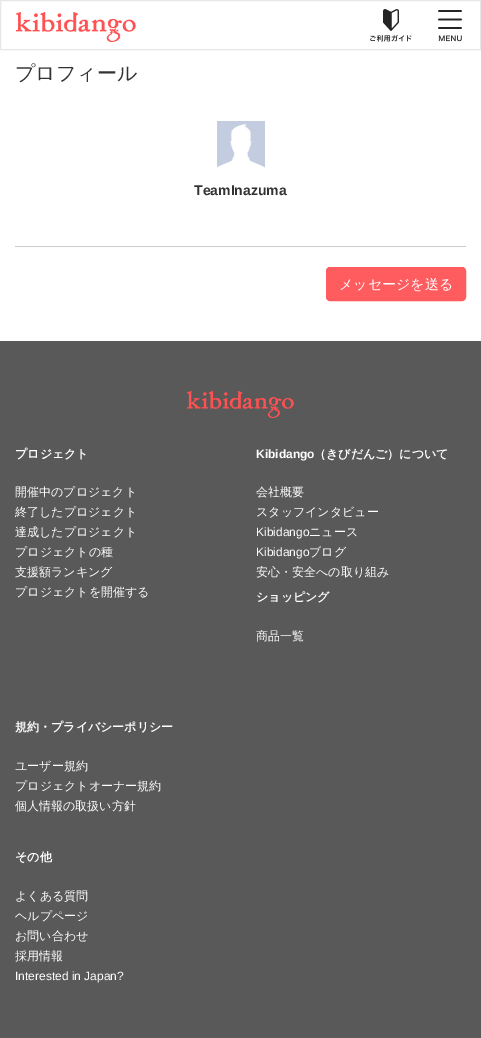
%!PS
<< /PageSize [481 1038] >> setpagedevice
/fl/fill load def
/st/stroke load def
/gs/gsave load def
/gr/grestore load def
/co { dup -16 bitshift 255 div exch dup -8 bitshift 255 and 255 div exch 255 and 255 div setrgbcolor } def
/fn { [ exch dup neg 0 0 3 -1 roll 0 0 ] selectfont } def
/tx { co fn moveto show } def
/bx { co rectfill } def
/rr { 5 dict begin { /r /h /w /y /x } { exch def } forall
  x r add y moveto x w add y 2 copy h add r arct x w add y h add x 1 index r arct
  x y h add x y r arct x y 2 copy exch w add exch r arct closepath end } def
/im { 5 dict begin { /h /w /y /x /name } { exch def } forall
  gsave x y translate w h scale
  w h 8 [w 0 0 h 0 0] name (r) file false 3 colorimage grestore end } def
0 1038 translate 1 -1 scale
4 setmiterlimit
0 0 481 1038 16#FFFFFF bx
16#E7E7E7 co
.5 .5 480 49 rectstroke
(media/1.raw) 16 12 120 30 im
(media/2.raw) 370 9 42 33 im
(media/3.raw) 438 10 24 32 im
15 246 451 1 16#CCCCCC bx
(media/4.raw) 217 121 48 47 im
16#FF5C60 co
326.5 267.5 139 33 3.5 rr gs fl gr
st
0 341 481 697 16#595959 bx
(media/5.raw) 187 391 107 27 im
(プロフィール) 15 80 /WenQuanYiZenHei-Medium 20 16#333333 tx
(TeamInazuma) 194 195 /LiberationSans-Bold 14 16#333333 tx
(メッセージを送る) 339 289 /WenQuanYiZenHei-Medium 14 16#FFFFFF tx
(プロジェクト) 15 458 /WenQuanYiZenHei-Bold 12 16#FFFFFF tx
(開催中のプロジェクト) 15 496 /WenQuanYiZenHei-Medium 12 16#FFFFFF tx
(終了したプロジェクト) 15 516 /WenQuanYiZenHei-Medium 12 16#FFFFFF tx
(達成したプロジェクト) 15 536 /WenQuanYiZenHei-Medium 12 16#FFFFFF tx
(プロジェクトの種) 15 556 /WenQuanYiZenHei-Medium 12 16#FFFFFF tx
(支援額ランキング) 15 576 /WenQuanYiZenHei-Medium 12 16#FFFFFF tx
(プロジェクトを開催する) 15 596 /WenQuanYiZenHei-Medium 12 16#FFFFFF tx
(Kibidango) 256 458 /LiberationSans-Bold 12 16#FFFFFF tx
(（きびだんご）について) 314 458 /WenQuanYiZenHei-Bold 12 16#FFFFFF tx
(会社概要) 256 496 /WenQuanYiZenHei-Medium 12 16#FFFFFF tx
(スタッフインタビュー) 256 516 /WenQuanYiZenHei-Medium 12 16#FFFFFF tx
(Kibidango) 256 536 /LiberationSans-Regular 12 16#FFFFFF tx
(ニュース) 309 536 /WenQuanYiZenHei-Medium 12 16#FFFFFF tx
(Kibidango) 256 556 /LiberationSans-Regular 12 16#FFFFFF tx
(ブログ) 309 556 /WenQuanYiZenHei-Medium 12 16#FFFFFF tx
(安心・安全への取り組み) 256 576 /WenQuanYiZenHei-Medium 12 16#FFFFFF tx
(ショッピング) 256 601 /WenQuanYiZenHei-Bold 12 16#FFFFFF tx
(商品一覧) 256 640 /WenQuanYiZenHei-Medium 12 16#FFFFFF tx
(規約・プライバシーポリシー) 15 731 /WenQuanYiZenHei-Bold 12 16#FFFFFF tx
(ユーザー規約) 15 770 /WenQuanYiZenHei-Medium 12 16#FFFFFF tx
(プロジェクトオーナー規約) 15 790 /WenQuanYiZenHei-Medium 12 16#FFFFFF tx
(個人情報の取扱い方針) 15 810 /WenQuanYiZenHei-Medium 12 16#FFFFFF tx
(その他) 15 861 /WenQuanYiZenHei-Bold 12 16#FFFFFF tx
(よくある質問) 15 900 /WenQuanYiZenHei-Medium 12 16#FFFFFF tx
(ヘルプページ) 15 920 /WenQuanYiZenHei-Medium 12 16#FFFFFF tx
(お問い合わせ) 15 940 /WenQuanYiZenHei-Medium 12 16#FFFFFF tx
(採用情報) 15 960 /WenQuanYiZenHei-Medium 12 16#FFFFFF tx
(Interested in Japan?) 15 980 /LiberationSans-Regular 12 16#FFFFFF tx
showpage
